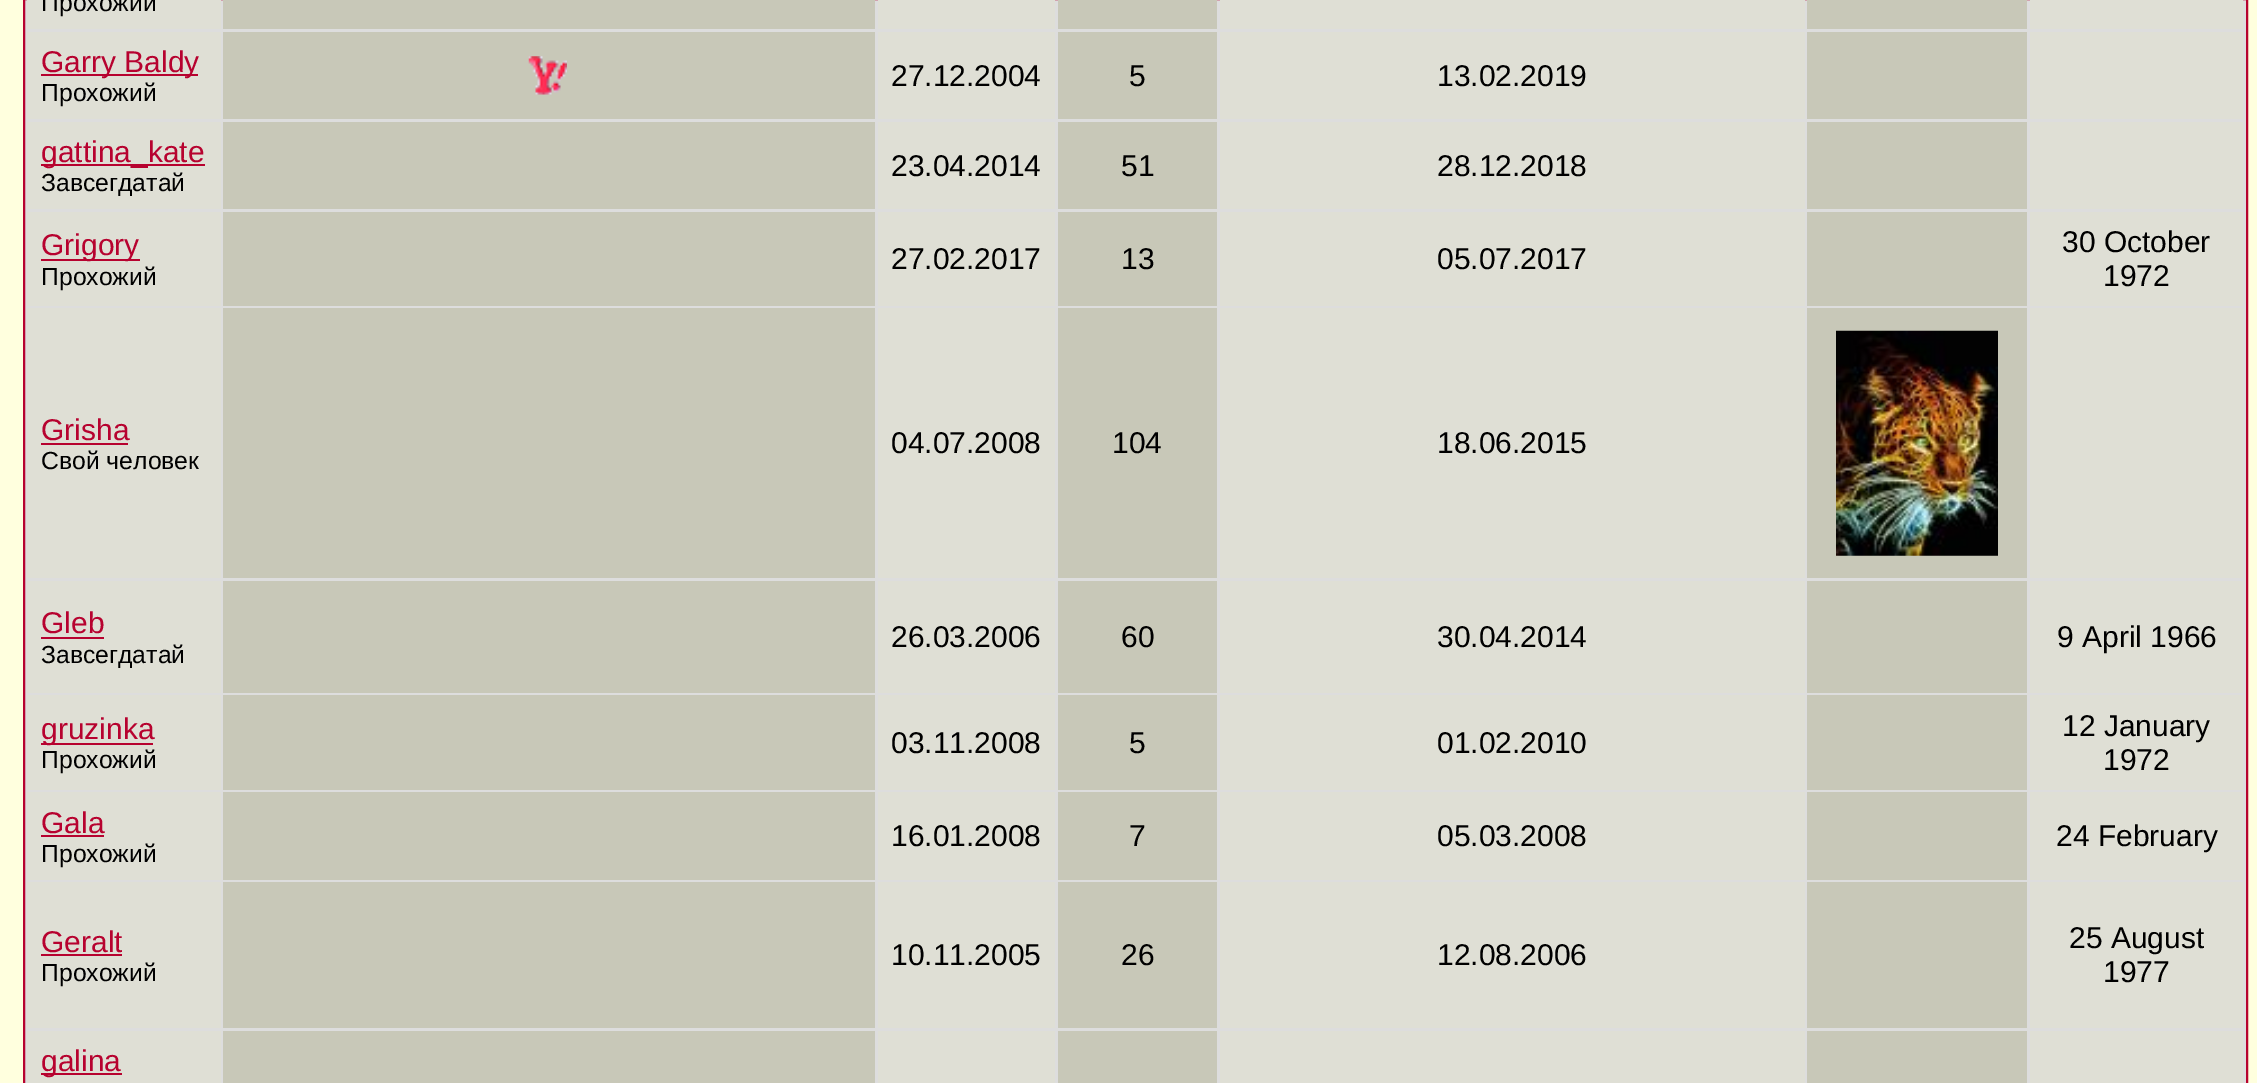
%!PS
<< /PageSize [2257 1083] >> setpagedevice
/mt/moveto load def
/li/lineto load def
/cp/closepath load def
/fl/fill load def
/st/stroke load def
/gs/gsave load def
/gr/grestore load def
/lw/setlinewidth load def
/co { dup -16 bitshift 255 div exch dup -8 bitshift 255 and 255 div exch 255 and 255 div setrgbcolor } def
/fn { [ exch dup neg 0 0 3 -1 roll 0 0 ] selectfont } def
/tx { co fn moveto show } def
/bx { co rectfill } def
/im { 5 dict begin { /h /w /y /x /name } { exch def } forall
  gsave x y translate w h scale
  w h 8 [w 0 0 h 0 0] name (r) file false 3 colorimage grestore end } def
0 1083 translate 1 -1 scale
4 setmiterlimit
0 0 2257 1083 16#FFFFDE bx
16#DDDDDD co
24 -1 mt 2247 -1 li 2247 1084 li 24 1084 li cp gs fl gr
16#B7022F co
2 lw
st
27 0 194 29 16#DFDFD5 bx
223 0 652 29 16#C8C8B8 bx
878 0 177 29 16#DFDFD5 bx
1058 0 159 29 16#C8C8B8 bx
1220 0 585 29 16#DFDFD5 bx
1807 0 220 29 16#C8C8B8 bx
2030 0 213 29 16#DFDFD5 bx
27 32 194 87 16#DFDFD5 bx
41 74 157 2 16#B7022F bx
223 32 652 87 16#C8C8B8 bx
(media/1.raw) 528 56 39 39 im
878 32 177 87 16#DFDFD5 bx
1058 32 159 87 16#C8C8B8 bx
1220 32 585 87 16#DFDFD5 bx
1807 32 220 87 16#C8C8B8 bx
2030 32 213 87 16#DFDFD5 bx
27 122 194 87 16#DFDFD5 bx
41 164 164 2 16#B7022F bx
223 122 652 87 16#C8C8B8 bx
878 122 177 87 16#DFDFD5 bx
1058 122 159 87 16#C8C8B8 bx
1220 122 585 87 16#DFDFD5 bx
1807 122 220 87 16#C8C8B8 bx
2030 122 213 87 16#DFDFD5 bx
27 212 194 94 16#DFDFD5 bx
41 259 99 2 16#B7022F bx
223 212 652 94 16#C8C8B8 bx
878 212 177 94 16#DFDFD5 bx
1058 212 159 94 16#C8C8B8 bx
1220 212 585 94 16#DFDFD5 bx
1807 212 220 94 16#C8C8B8 bx
2030 212 213 94 16#DFDFD5 bx
27 308 194 270 16#DFDFD5 bx
41 443 87 2 16#B7022F bx
223 308 652 270 16#C8C8B8 bx
878 308 177 270 16#DFDFD5 bx
1058 308 159 270 16#C8C8B8 bx
1220 308 585 270 16#DFDFD5 bx
1807 308 220 270 16#C8C8B8 bx
(media/2.raw) 1836 330 162 226 im
2030 308 213 270 16#DFDFD5 bx
27 581 194 112 16#DFDFD5 bx
41 637 63 2 16#B7022F bx
223 581 652 112 16#C8C8B8 bx
878 581 177 112 16#DFDFD5 bx
1058 581 159 112 16#C8C8B8 bx
1220 581 585 112 16#DFDFD5 bx
1807 581 220 112 16#C8C8B8 bx
2030 581 213 112 16#DFDFD5 bx
27 695 194 95 16#DFDFD5 bx
41 743 112 2 16#B7022F bx
223 695 652 95 16#C8C8B8 bx
878 695 177 95 16#DFDFD5 bx
1058 695 159 95 16#C8C8B8 bx
1220 695 585 95 16#DFDFD5 bx
1807 695 220 95 16#C8C8B8 bx
2030 695 213 95 16#DFDFD5 bx
27 792 194 88 16#DFDFD5 bx
41 835 63 2 16#B7022F bx
223 792 652 88 16#C8C8B8 bx
878 792 177 88 16#DFDFD5 bx
1058 792 159 88 16#C8C8B8 bx
1220 792 585 88 16#DFDFD5 bx
1807 792 220 88 16#C8C8B8 bx
2030 792 213 88 16#DFDFD5 bx
27 882 194 146 16#DFDFD5 bx
41 954 81 2 16#B7022F bx
223 882 652 146 16#C8C8B8 bx
878 882 177 146 16#DFDFD5 bx
1058 882 159 146 16#C8C8B8 bx
1220 882 585 146 16#DFDFD5 bx
1807 882 220 146 16#C8C8B8 bx
2030 882 213 146 16#DFDFD5 bx
27 1031 194 52 16#DFDFD5 bx
41 1073 81 2 16#B7022F bx
223 1031 652 52 16#C8C8B8 bx
878 1031 177 52 16#DFDFD5 bx
1058 1031 159 52 16#C8C8B8 bx
1220 1031 585 52 16#DFDFD5 bx
1807 1031 220 52 16#C8C8B8 bx
2030 1031 213 52 16#DFDFD5 bx
(Прохожий) 41 11 /LiberationSans-Regular 24.75 16#000000 tx
(Garry Baldy) 41 72 /LiberationSans-Regular 30 16#B7022F tx
(Прохожий) 41 101 /LiberationSans-Regular 24.75 16#000000 tx
(27.12.2004) 891 86 /LiberationSans-Regular 30 16#000000 tx
(5) 1129 86 /LiberationSans-Regular 30 16#000000 tx
(13.02.2019) 1437 86 /LiberationSans-Regular 30 16#000000 tx
(gattina_kate) 41 162 /LiberationSans-Regular 30 16#B7022F tx
(Завсегдатай) 41 191 /LiberationSans-Regular 24.75 16#000000 tx
(23.04.2014) 891 176 /LiberationSans-Regular 30 16#000000 tx
(51) 1121 176 /LiberationSans-Regular 30 16#000000 tx
(28.12.2018) 1437 176 /LiberationSans-Regular 30 16#000000 tx
(Grigory) 41 255 /LiberationSans-Regular 30 16#B7022F tx
(Прохожий) 41 285 /LiberationSans-Regular 24.75 16#000000 tx
(27.02.2017) 891 269 /LiberationSans-Regular 30 16#000000 tx
(13) 1121 269 /LiberationSans-Regular 30 16#000000 tx
(05.07.2017) 1437 269 /LiberationSans-Regular 30 16#000000 tx
(30 October) 2062 252 /LiberationSans-Regular 30 16#000000 tx
(1972) 2103 286 /LiberationSans-Regular 30 16#000000 tx
(Grisha) 41 440 /LiberationSans-Regular 30 16#B7022F tx
(Свой человек) 41 469 /LiberationSans-Regular 24.75 16#000000 tx
(04.07.2008) 891 453 /LiberationSans-Regular 30 16#000000 tx
(104) 1112 453 /LiberationSans-Regular 30 16#000000 tx
(18.06.2015) 1437 453 /LiberationSans-Regular 30 16#000000 tx
(Gleb) 41 633 /LiberationSans-Regular 30 16#B7022F tx
(Завсегдатай) 41 663 /LiberationSans-Regular 24.75 16#000000 tx
(26.03.2006) 891 647 /LiberationSans-Regular 30 16#000000 tx
(60) 1121 647 /LiberationSans-Regular 30 16#000000 tx
(30.04.2014) 1437 647 /LiberationSans-Regular 30 16#000000 tx
(9 April 1966) 2057 647 /LiberationSans-Regular 30 16#000000 tx
(gruzinka) 41 739 /LiberationSans-Regular 30 16#B7022F tx
(Прохожий) 41 768 /LiberationSans-Regular 24.75 16#000000 tx
(03.11.2008) 891 753 /LiberationSans-Regular 30 16#000000 tx
(5) 1129 753 /LiberationSans-Regular 30 16#000000 tx
(01.02.2010) 1437 753 /LiberationSans-Regular 30 16#000000 tx
(12 January) 2062 736 /LiberationSans-Regular 30 16#000000 tx
(1972) 2103 770 /LiberationSans-Regular 30 16#000000 tx
(Gala) 41 833 /LiberationSans-Regular 30 16#B7022F tx
(Прохожий) 41 862 /LiberationSans-Regular 24.75 16#000000 tx
(16.01.2008) 891 846 /LiberationSans-Regular 30 16#000000 tx
(7) 1129 846 /LiberationSans-Regular 30 16#000000 tx
(05.03.2008) 1437 846 /LiberationSans-Regular 30 16#000000 tx
(24 February) 2056 846 /LiberationSans-Regular 30 16#000000 tx
(Geralt) 41 952 /LiberationSans-Regular 30 16#B7022F tx
(Прохожий) 41 981 /LiberationSans-Regular 24.75 16#000000 tx
(10.11.2005) 891 965 /LiberationSans-Regular 30 16#000000 tx
(26) 1121 965 /LiberationSans-Regular 30 16#000000 tx
(12.08.2006) 1437 965 /LiberationSans-Regular 30 16#000000 tx
(25 August) 2069 948 /LiberationSans-Regular 30 16#000000 tx
(1977) 2103 982 /LiberationSans-Regular 30 16#000000 tx
(galina) 41 1071 /LiberationSans-Regular 30 16#B7022F tx
showpage
